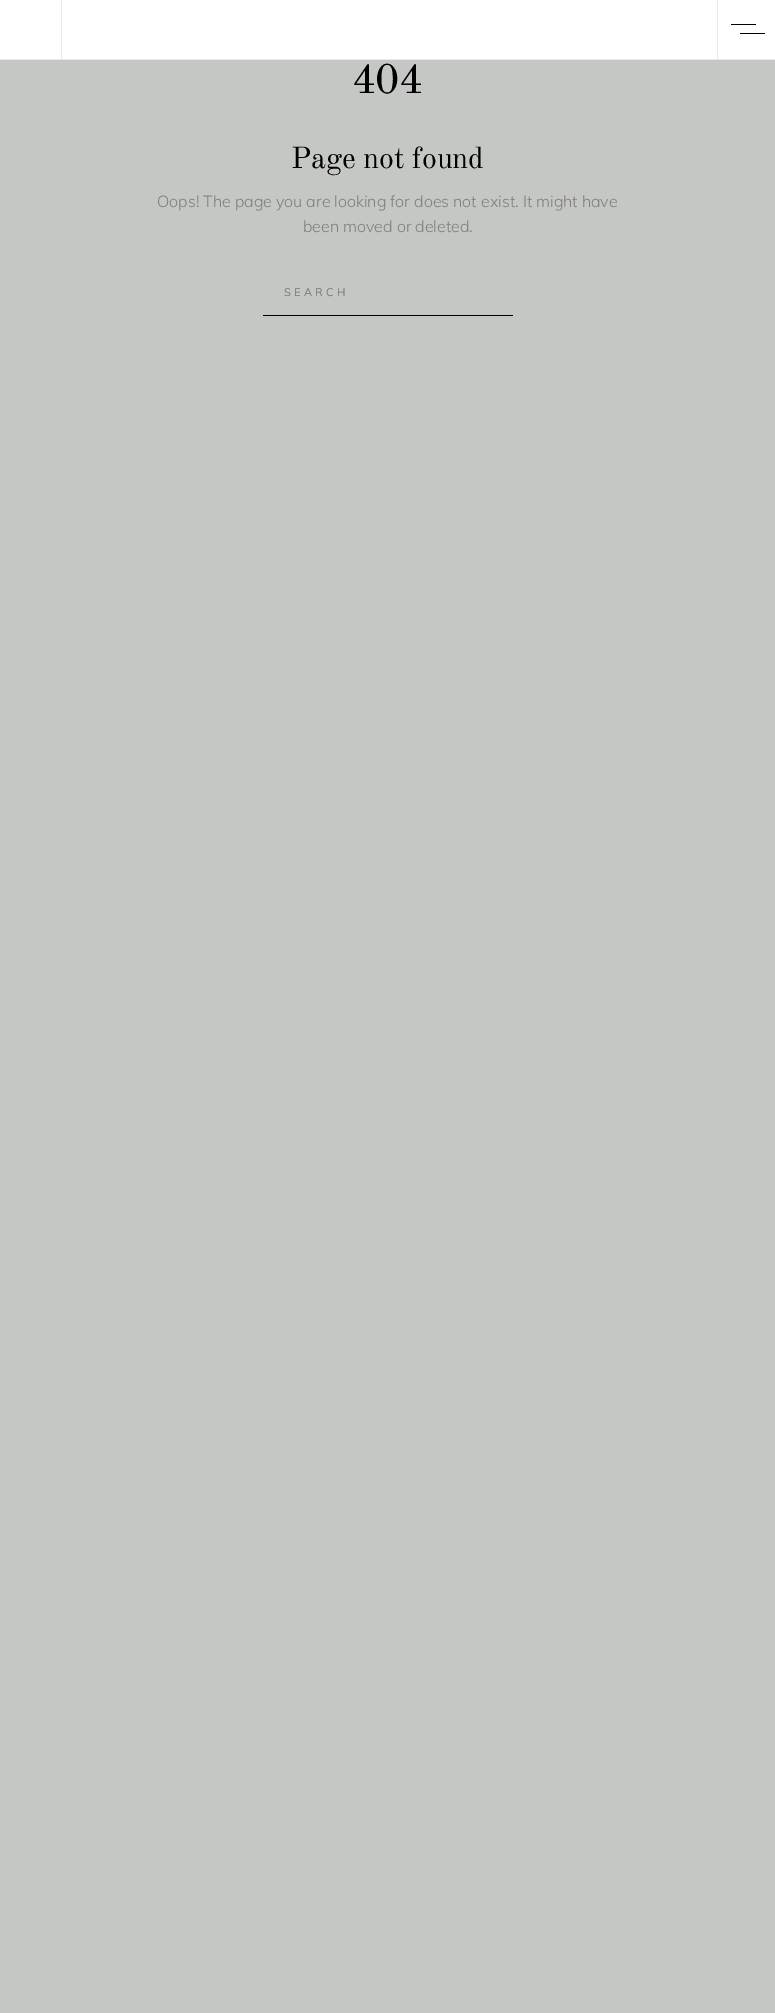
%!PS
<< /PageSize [775 2013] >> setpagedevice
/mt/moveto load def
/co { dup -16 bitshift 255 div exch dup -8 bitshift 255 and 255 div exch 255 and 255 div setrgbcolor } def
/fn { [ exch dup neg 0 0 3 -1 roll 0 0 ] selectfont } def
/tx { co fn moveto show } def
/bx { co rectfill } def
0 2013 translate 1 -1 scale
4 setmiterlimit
0 0 775 2013 16#C5C7C4 bx
0 0 775 59 16#FFFFFF bx
0 59 775 1 16#ECE8E5 bx
61 0 1 59 16#ECE8E5 bx
717 0 1 59 16#ECE8E5 bx
731 24 25 1 16#000000 bx
740 33 25 1 16#000000 bx
263 315 250 1 16#000000 bx
/OldStandardTT-Regular 42 fn
352 93 mt -1 0 (404) ashow
/OldStandardTT-Regular 30 fn
291 168 mt -.25 0 (Page not found) ashow
(Oops! The page you are looking for does not exist. It might have) 157 207 /Muli-Light 16 16#7E7E7E tx
(been moved or deleted.) 303 232 /Muli-Light 16 16#7E7E7E tx
/Muli-Regular 11 fn
16#757575 co
284 296 mt 3.25 0 (SEARCH) ashow
showpage
